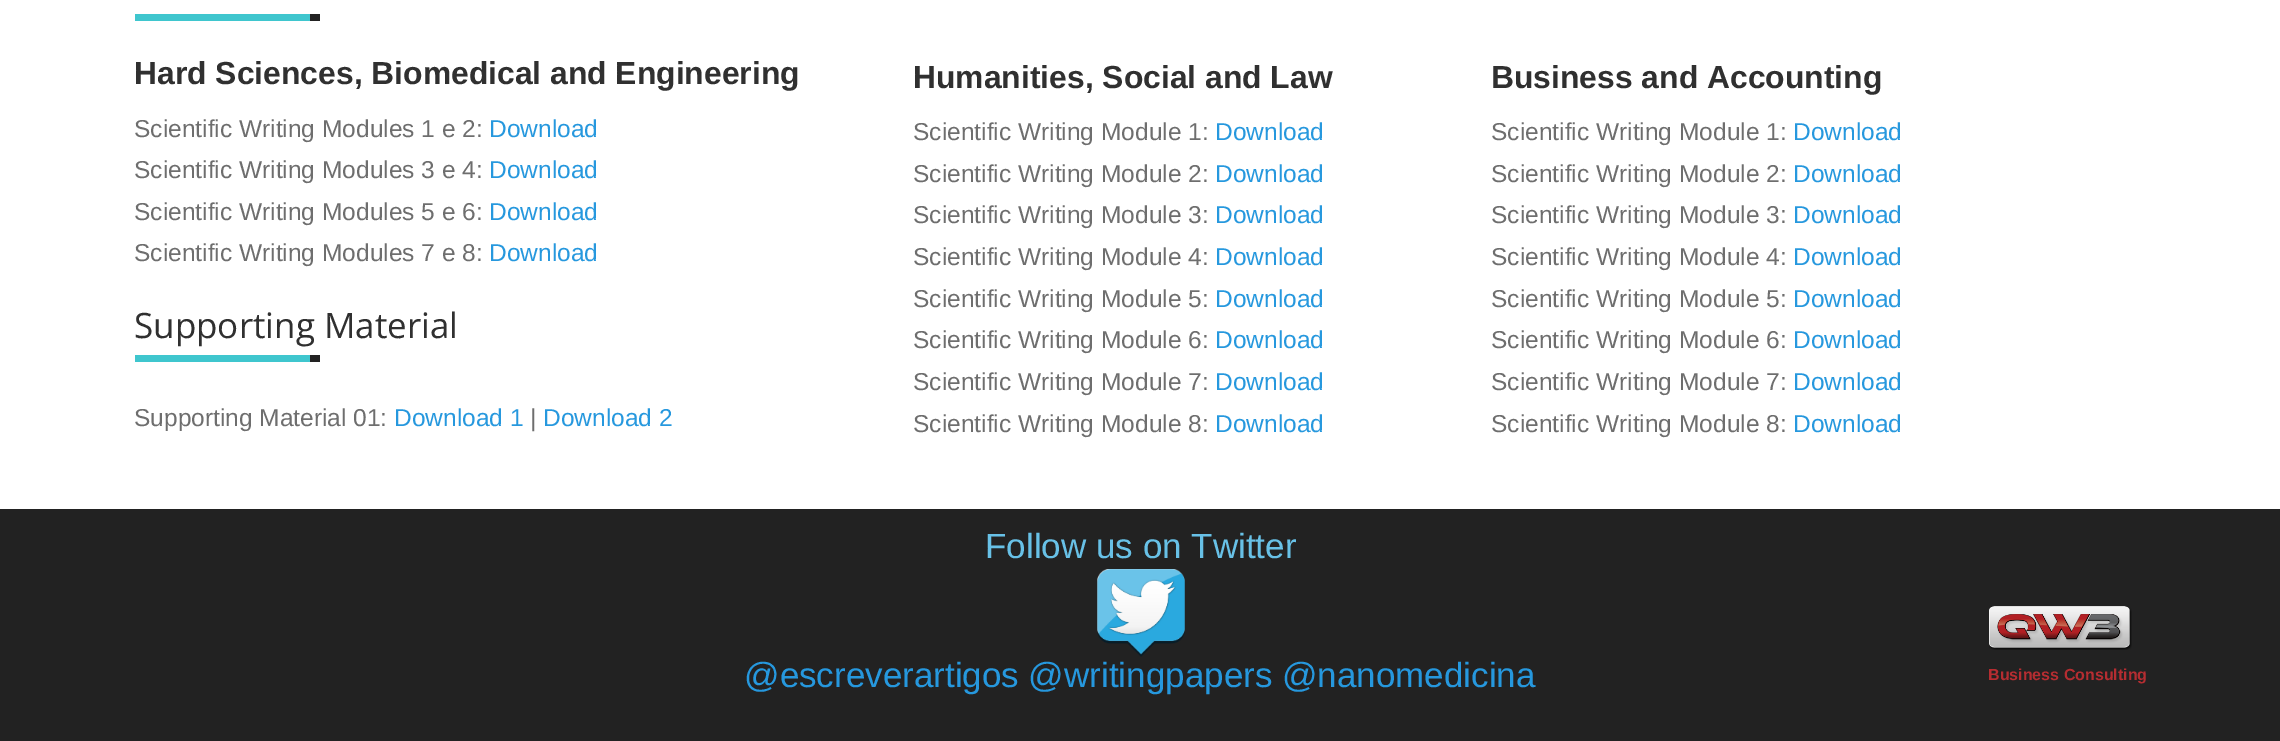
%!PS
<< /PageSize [2280 741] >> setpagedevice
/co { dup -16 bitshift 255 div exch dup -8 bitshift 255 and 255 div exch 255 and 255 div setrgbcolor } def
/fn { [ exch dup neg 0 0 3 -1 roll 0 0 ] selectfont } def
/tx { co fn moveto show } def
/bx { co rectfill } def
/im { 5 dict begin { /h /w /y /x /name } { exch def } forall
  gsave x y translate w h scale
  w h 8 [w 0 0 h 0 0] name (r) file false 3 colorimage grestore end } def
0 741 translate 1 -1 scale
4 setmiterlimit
0 0 2280 741 16#FFFFFF bx
135 14 175 7 16#3FC6CE bx
310 14 10 7 16#222222 bx
135 355 175 7 16#3FC6CE bx
310 355 10 7 16#222222 bx
0 509 2280 232 16#222222 bx
(media/1.raw) 1097 569 88 88 im
(media/2.raw) 1989 606 143 44 im
(Hard Sciences, Biomedical and Engineering) 134 84 /LiberationSans-Bold 31.85 16#303030 tx
(Humanities, Social and Law) 913 88 /LiberationSans-Bold 31.85 16#303030 tx
(Scientific Writing Module 1:) 913 140 /LiberationSans-Regular 24.5 16#6E6E6E tx
(Download) 1215 140 /LiberationSans-Regular 24.5 16#2698DE tx
(Scientific Writing Module 2:) 913 182 /LiberationSans-Regular 24.5 16#6E6E6E tx
(Download) 1215 182 /LiberationSans-Regular 24.5 16#2698DE tx
(Scientific Writing Module 3:) 913 223 /LiberationSans-Regular 24.5 16#6E6E6E tx
(Download) 1215 223 /LiberationSans-Regular 24.5 16#2698DE tx
(Scientific Writing Module 4:) 913 265 /LiberationSans-Regular 24.5 16#6E6E6E tx
(Download) 1215 265 /LiberationSans-Regular 24.5 16#2698DE tx
(Scientific Writing Module 5:) 913 307 /LiberationSans-Regular 24.5 16#6E6E6E tx
(Download) 1215 307 /LiberationSans-Regular 24.5 16#2698DE tx
(Scientific Writing Module 6:) 913 348 /LiberationSans-Regular 24.5 16#6E6E6E tx
(Download) 1215 348 /LiberationSans-Regular 24.5 16#2698DE tx
(Scientific Writing Module 7:) 913 390 /LiberationSans-Regular 24.5 16#6E6E6E tx
(Download) 1215 390 /LiberationSans-Regular 24.5 16#2698DE tx
(Scientific Writing Module 8:) 913 432 /LiberationSans-Regular 24.5 16#6E6E6E tx
(Download) 1215 432 /LiberationSans-Regular 24.5 16#2698DE tx
(Business and Accounting) 1491 88 /LiberationSans-Bold 31.85 16#303030 tx
(Scientific Writing Module 1:) 1491 140 /LiberationSans-Regular 24.5 16#6E6E6E tx
(Download) 1793 140 /LiberationSans-Regular 24.5 16#2698DE tx
(Scientific Writing Module 2:) 1491 182 /LiberationSans-Regular 24.5 16#6E6E6E tx
(Download) 1793 182 /LiberationSans-Regular 24.5 16#2698DE tx
(Scientific Writing Module 3:) 1491 223 /LiberationSans-Regular 24.5 16#6E6E6E tx
(Download) 1793 223 /LiberationSans-Regular 24.5 16#2698DE tx
(Scientific Writing Module 4:) 1491 265 /LiberationSans-Regular 24.5 16#6E6E6E tx
(Download) 1793 265 /LiberationSans-Regular 24.5 16#2698DE tx
(Scientific Writing Module 5:) 1491 307 /LiberationSans-Regular 24.5 16#6E6E6E tx
(Download) 1793 307 /LiberationSans-Regular 24.5 16#2698DE tx
(Scientific Writing Module 6:) 1491 348 /LiberationSans-Regular 24.5 16#6E6E6E tx
(Download) 1793 348 /LiberationSans-Regular 24.5 16#2698DE tx
(Scientific Writing Module 7:) 1491 390 /LiberationSans-Regular 24.5 16#6E6E6E tx
(Download) 1793 390 /LiberationSans-Regular 24.5 16#2698DE tx
(Scientific Writing Module 8:) 1491 432 /LiberationSans-Regular 24.5 16#6E6E6E tx
(Download) 1793 432 /LiberationSans-Regular 24.5 16#2698DE tx
(Scientific Writing Modules 1 e 2:) 134 137 /LiberationSans-Regular 24.5 16#6E6E6E tx
(Download) 489 137 /LiberationSans-Regular 24.5 16#2698DE tx
(Scientific Writing Modules 3 e 4:) 134 178 /LiberationSans-Regular 24.5 16#6E6E6E tx
(Download) 489 178 /LiberationSans-Regular 24.5 16#2698DE tx
(Scientific Writing Modules 5 e 6:) 134 220 /LiberationSans-Regular 24.5 16#6E6E6E tx
(Download) 489 220 /LiberationSans-Regular 24.5 16#2698DE tx
(Scientific Writing Modules 7 e 8:) 134 261 /LiberationSans-Regular 24.5 16#6E6E6E tx
(Download) 489 261 /LiberationSans-Regular 24.5 16#2698DE tx
(Supporting Material) 134 338 /OpenSans-Regular 35 16#303030 tx
(Supporting Material 01:) 134 426 /LiberationSans-Regular 24.5 16#6E6E6E tx
(Download 1) 394 426 /LiberationSans-Regular 24.5 16#2698DE tx
(|) 530 426 /LiberationSans-Regular 24.5 16#6E6E6E tx
(Download 2) 543 426 /LiberationSans-Regular 24.5 16#2698DE tx
(Follow us on Twitter) 985 558 /LiberationSans-Regular 35 16#68C1E7 tx
(@escreverartigos @writingpapers @nanomedicina) 744 687 /LiberationSans-Regular 35 16#2698DE tx
(Business Consulting) 1988 680 /LiberationSans-Bold 16 16#B52D31 tx
showpage
